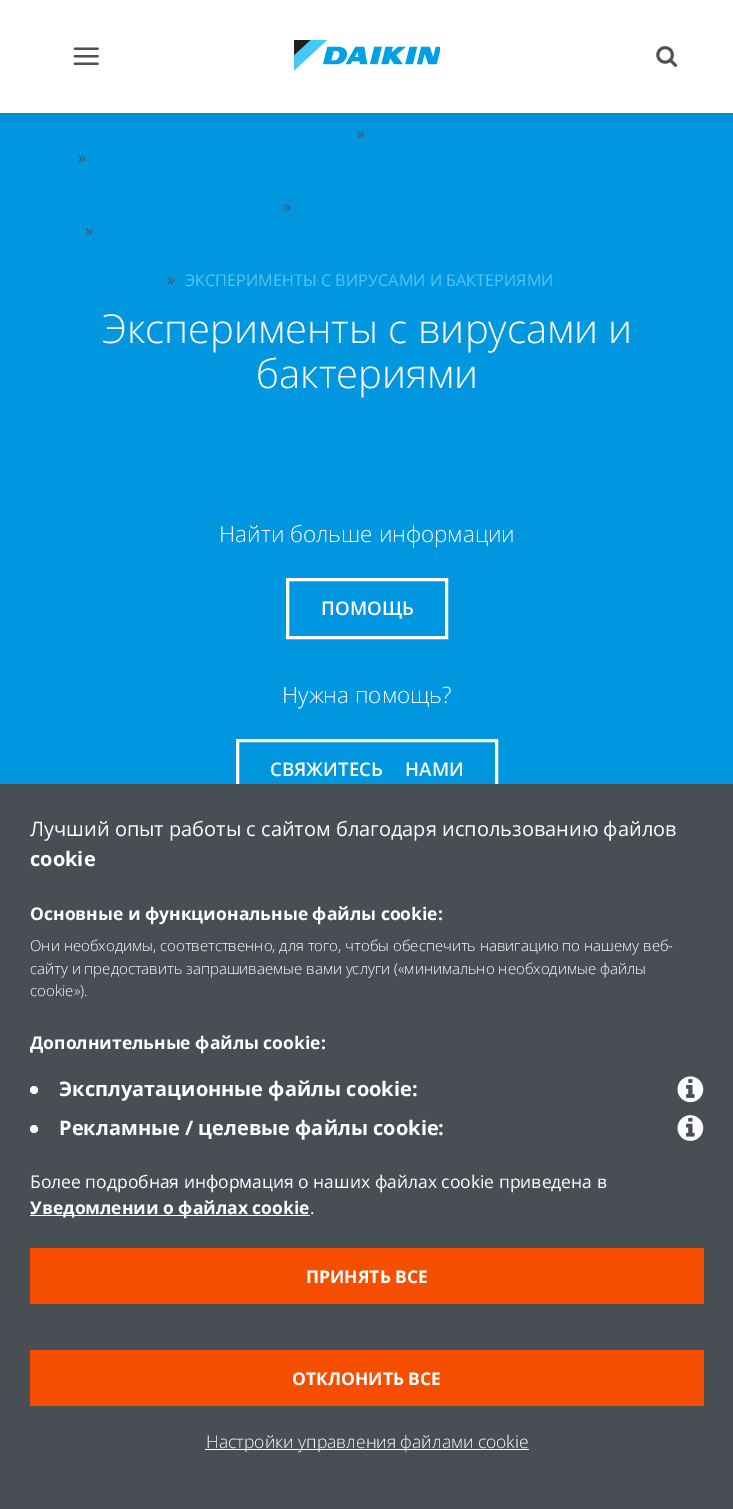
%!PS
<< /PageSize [733 1509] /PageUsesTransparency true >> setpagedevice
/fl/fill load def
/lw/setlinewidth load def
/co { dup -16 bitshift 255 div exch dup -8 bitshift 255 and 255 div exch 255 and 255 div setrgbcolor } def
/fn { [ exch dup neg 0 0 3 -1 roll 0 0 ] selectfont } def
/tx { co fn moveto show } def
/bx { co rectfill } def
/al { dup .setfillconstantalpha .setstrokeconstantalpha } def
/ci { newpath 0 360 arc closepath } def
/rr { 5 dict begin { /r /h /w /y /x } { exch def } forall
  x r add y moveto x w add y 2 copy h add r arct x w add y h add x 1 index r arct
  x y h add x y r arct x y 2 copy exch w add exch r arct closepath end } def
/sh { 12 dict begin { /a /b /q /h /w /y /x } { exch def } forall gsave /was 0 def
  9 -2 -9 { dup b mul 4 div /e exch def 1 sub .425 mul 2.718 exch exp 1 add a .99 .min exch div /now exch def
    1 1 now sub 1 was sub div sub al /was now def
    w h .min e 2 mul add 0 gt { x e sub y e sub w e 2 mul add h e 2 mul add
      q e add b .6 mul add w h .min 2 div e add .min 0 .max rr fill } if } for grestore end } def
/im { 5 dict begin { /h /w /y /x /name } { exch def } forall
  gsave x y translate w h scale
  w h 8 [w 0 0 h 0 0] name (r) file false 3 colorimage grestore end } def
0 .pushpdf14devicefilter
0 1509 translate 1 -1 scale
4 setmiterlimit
0 0 733 1509 16#0097E0 bx
16#000000 co
3 4 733 112 0 5.5 .05 sh
0 0 733 113 16#FFFFFF bx
(media/1.raw) 73 47 26 18 im
(media/2.raw) 294 40 146 31 im
(media/3.raw) 656 46 22 21 im
3 lw
287.5 579.5 159 58 rectstroke
237.5 740.5 259 58 rectstroke
0 784 733 725 16#484E54 bx
16#FFFFFF co
34 1090 4 ci fl
(media/4.raw) 677 1076 27 27 im
34 1129 4 ci fl
(media/5.raw) 677 1115 27 26 im
30 1215 280 1 16#FFFFFF bx
30 1248 674 56 16#F54E00 bx
30 1350 674 56 16#F54E00 bx
205 1449 324 1 16#FFFFFF bx
(») 357 139 /OpenSans-Regular 16.25 16#515151 tx
(») 78 163 /OpenSans-Regular 16.25 16#515151 tx
(») 283 212 /OpenSans-Regular 16.25 16#515151 tx
(») 85 236 /OpenSans-Regular 16.25 16#515151 tx
(») 167 285 /OpenSans-Regular 16.25 16#515151 tx
(ЭКСПЕРИМЕНТЫ С ВИРУСАМИ И БАКТЕРИЯМИ) 185 286 /OpenSans-Regular 16.25 16#54C3F1 tx
(Эксперименты с вирусами и) 102 343 /OpenSans-Light 40 16#FFFFFF tx
(бактериями) 256 388 /OpenSans-Light 40 16#FFFFFF tx
(Найти больше информации) 219 542 /OpenSans-Light 22.5 16#FFFFFF tx
(ПОМОЩЬ) 321 615 /OpenSans-SemiBold 18.75 16#FFFFFF tx
(Нужна помощь?) 282 703 /OpenSans-Light 22.5 16#FFFFFF tx
(СВЯЖИТЕСЬ С НАМИ) 270 776 /OpenSans-SemiBold 18.75 16#FFFFFF tx
(Лучший опыт работы с сайтом благодаря использованию файлов) 30 836 /OpenSans-Regular 20 16#FFFFFF tx
(cookie) 30 866 /OpenSans-Bold 20 16#FFFFFF tx
(Основные и функциональные файлы cookie:) 30 920 /OpenSans-Bold 17.5 16#FFFFFF tx
(Они необходимы, соответственно, для того, чтобы обеспечить навигацию по нашему веб-) 30 951 /OpenSans-Light 15 16#FFFFFF tx
(сайту и предоставить запрашиваемые вами услуги \(«минимально необходимые файлы) 30 974 /OpenSans-Light 15 16#FFFFFF tx
(cookie»\).) 30 996 /OpenSans-Light 15 16#FFFFFF tx
(Дополнительные файлы cookie:) 30 1049 /OpenSans-Bold 17.5 16#FFFFFF tx
(Эксплуатационные файлы cookie:) 59 1096 /OpenSans-Bold 20 16#FFFFFF tx
(Рекламные / целевые файлы cookie:) 59 1135 /OpenSans-Bold 20 16#FFFFFF tx
(Более подробная информация о наших файлах cookie приведена в) 30 1188 /OpenSans-Regular 17.5 16#FFFFFF tx
(Уведомлении о файлах cookie) 30 1214 /OpenSans-Bold 17.5 16#FFFFFF tx
(.) 310 1214 /OpenSans-Regular 17.5 16#FFFFFF tx
(ПРИНЯТЬ ВСЕ) 306 1283 /OpenSans-Bold 17.5 16#FFFFFF tx
(ОТКЛОНИТЬ ВСЕ) 292 1385 /OpenSans-Bold 17.5 16#FFFFFF tx
(Настройки управления файлами cookie) 206 1448 /OpenSans-Light 17.5 16#FFFFFF tx
.poppdf14devicefilter showpage
